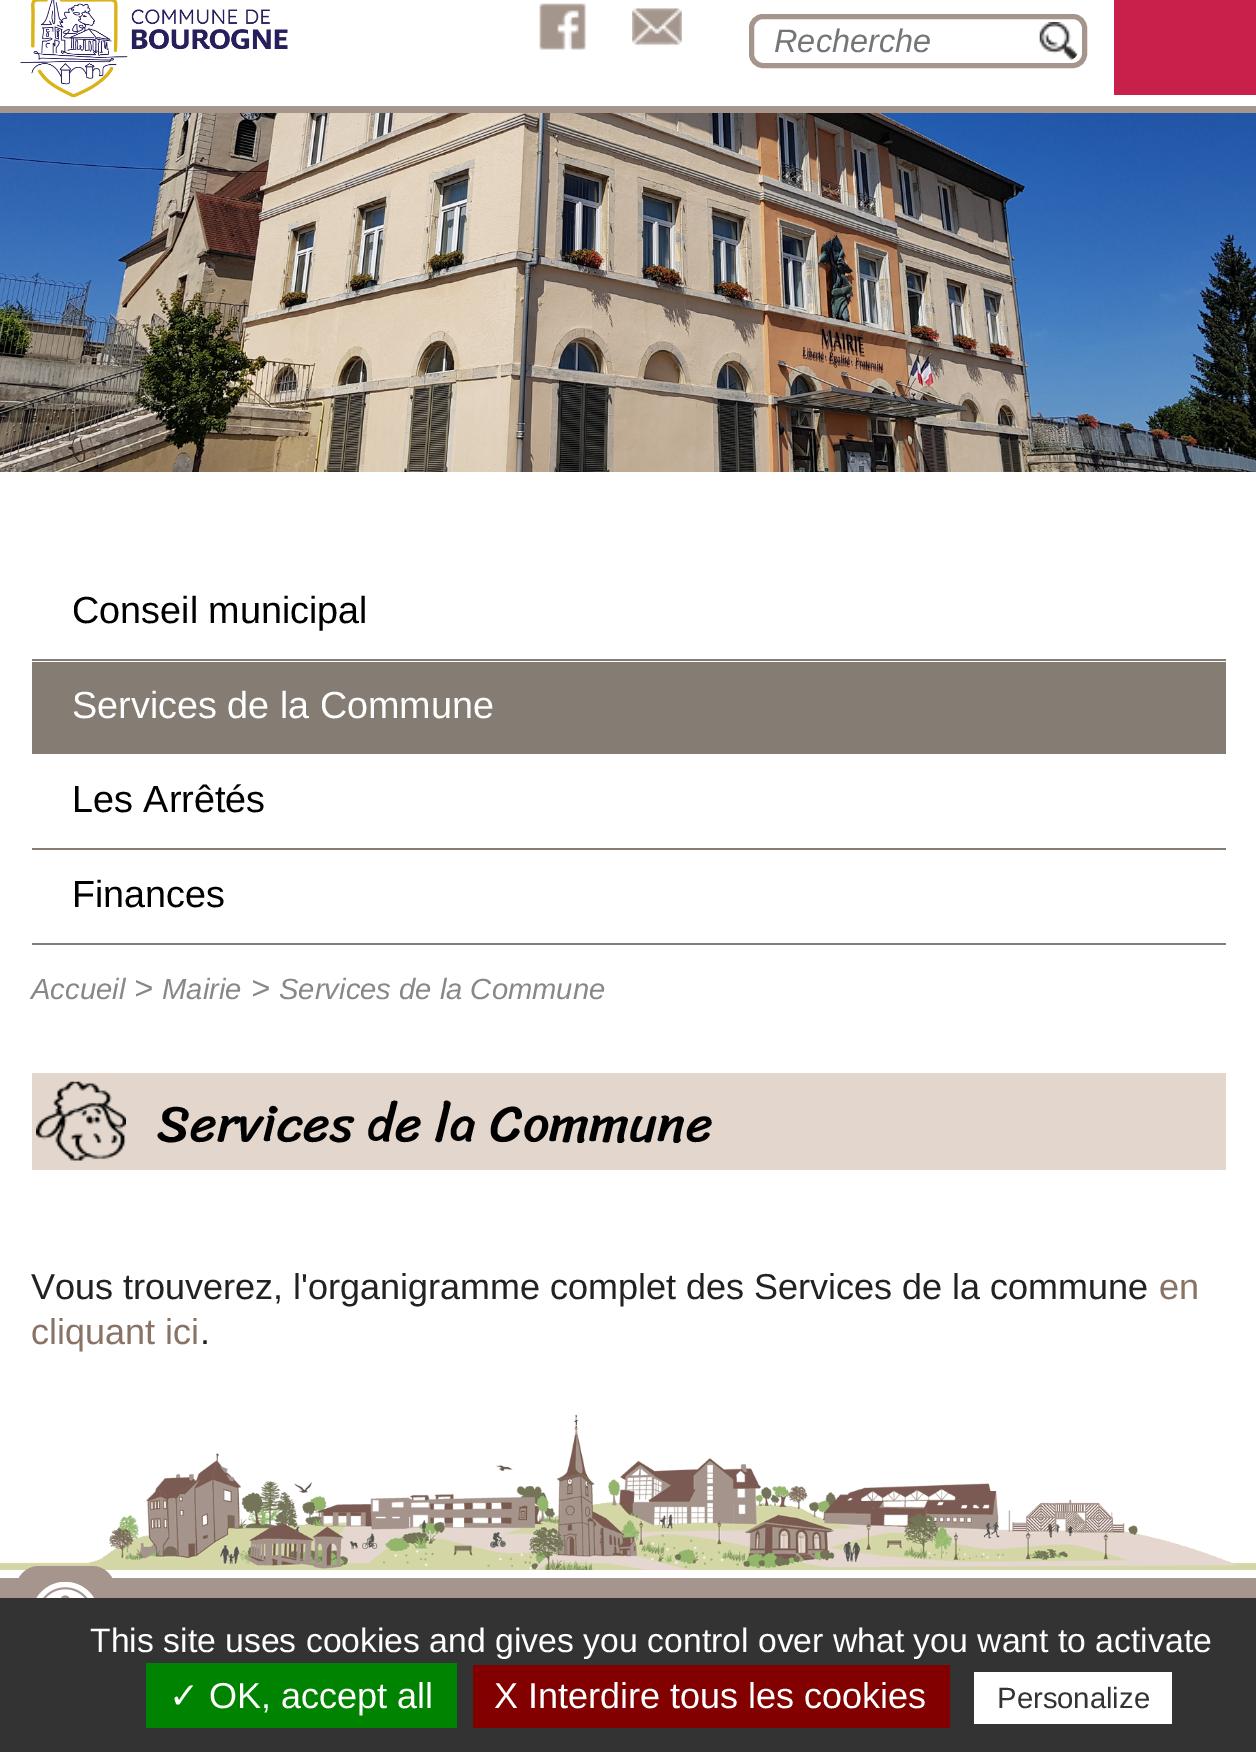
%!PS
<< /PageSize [1256 1752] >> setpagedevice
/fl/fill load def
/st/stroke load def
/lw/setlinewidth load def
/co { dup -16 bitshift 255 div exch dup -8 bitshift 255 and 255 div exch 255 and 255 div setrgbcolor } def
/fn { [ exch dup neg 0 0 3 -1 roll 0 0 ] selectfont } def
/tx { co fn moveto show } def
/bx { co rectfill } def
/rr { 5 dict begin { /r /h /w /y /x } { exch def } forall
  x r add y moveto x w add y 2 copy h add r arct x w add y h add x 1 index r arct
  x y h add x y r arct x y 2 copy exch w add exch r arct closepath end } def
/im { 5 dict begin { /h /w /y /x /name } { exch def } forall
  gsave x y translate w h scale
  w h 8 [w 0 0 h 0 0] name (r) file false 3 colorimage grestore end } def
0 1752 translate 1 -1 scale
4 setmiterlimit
0 0 1256 1752 16#FFFFFF bx
(media/1.raw) 20 0 268 98 im
0 106 1256 7 16#A5958D bx
(media/2.raw) 539 3 47 47 im
(media/3.raw) 632 8 50 38 im
5 lw
751.5 16.5 333 49 11.5 rr st
(media/4.raw) 1039 22 39 38 im
1114 0 142 95 16#C91F4B bx
(media/5.raw) 0 113 1256 359 im
(media/6.raw) 0 1414 1256 156 im
32 659 1194 2 16#857D73 bx
32 662 1194 92 16#857D73 bx
32 848 1194 2 16#857D73 bx
32 943 1194 2 16#857D73 bx
32 1073 1194 97 16#E3D7CD bx
(media/7.raw) 36 1081 90 80 im
0 1578 1256 20 16#A5958D bx
16 1566 99 99 23 rr fl
(media/8.raw) 36 1582 58 16 im
0 1598 1256 154 16#333333 bx
146 1663 311 65 16#008300 bx
473 1665 477 63 16#830000 bx
974 1672 198 52 16#FFFFFF bx
(Recherche) 774 52 /LiberationSans-Italic 32.5 16#757575 tx
(Conseil municipal) 72 623 /LiberationSans-Regular 37.75 16#000000 tx
(Services de la Commune) 72 718 /LiberationSans-Regular 37.75 16#FFFFFF tx
(Les Arrêtés) 72 812 /LiberationSans-Regular 37.75 16#000000 tx
(Finances) 72 907 /LiberationSans-Regular 37.75 16#000000 tx
(Accueil) 31 999 /LiberationSans-Italic 29.2 16#888888 tx
(>) 134 999 /LiberationSans-Italic 32.5 16#888888 tx
(Mairie) 162 999 /LiberationSans-Italic 29.2 16#888888 tx
(>) 251 999 /LiberationSans-Italic 32.5 16#888888 tx
(Services de la Commune) 279 999 /LiberationSans-Italic 29.2 16#888888 tx
(Services de la Commune) 157 1141 /Sriracha-Regular 52.25 16#000000 tx
(Vous trouverez, l'organigramme complet des Services de la commune) 31 1299 /LiberationSans-Regular 36 16#222222 tx
(en) 1159 1299 /LiberationSans-Regular 36 16#897367 tx
(cliquant ici) 31 1344 /LiberationSans-Regular 36 16#897367 tx
(.) 200 1344 /LiberationSans-Regular 36 16#222222 tx
(This site uses cookies and gives you control over what you want to activate) 90 1652 /LiberationSans-Regular 33.75 16#FFFFFF tx
(✓) 169 1708 /DejaVuSans-Regular 36 16#FFFFFF tx
(OK, accept all) 209 1708 /LiberationSans-Regular 36 16#FFFFFF tx
(X Interdire tous les cookies) 494 1708 /LiberationSans-Regular 36 16#FFFFFF tx
(Personalize) 997 1708 /LiberationSans-Regular 29.25 16#333333 tx
showpage
